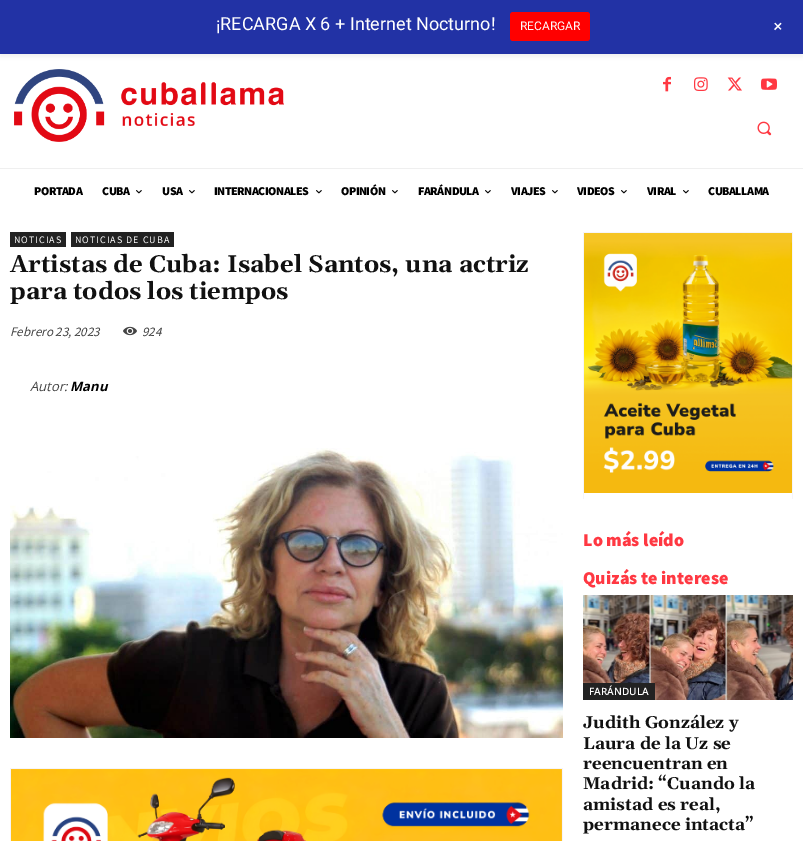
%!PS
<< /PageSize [803 841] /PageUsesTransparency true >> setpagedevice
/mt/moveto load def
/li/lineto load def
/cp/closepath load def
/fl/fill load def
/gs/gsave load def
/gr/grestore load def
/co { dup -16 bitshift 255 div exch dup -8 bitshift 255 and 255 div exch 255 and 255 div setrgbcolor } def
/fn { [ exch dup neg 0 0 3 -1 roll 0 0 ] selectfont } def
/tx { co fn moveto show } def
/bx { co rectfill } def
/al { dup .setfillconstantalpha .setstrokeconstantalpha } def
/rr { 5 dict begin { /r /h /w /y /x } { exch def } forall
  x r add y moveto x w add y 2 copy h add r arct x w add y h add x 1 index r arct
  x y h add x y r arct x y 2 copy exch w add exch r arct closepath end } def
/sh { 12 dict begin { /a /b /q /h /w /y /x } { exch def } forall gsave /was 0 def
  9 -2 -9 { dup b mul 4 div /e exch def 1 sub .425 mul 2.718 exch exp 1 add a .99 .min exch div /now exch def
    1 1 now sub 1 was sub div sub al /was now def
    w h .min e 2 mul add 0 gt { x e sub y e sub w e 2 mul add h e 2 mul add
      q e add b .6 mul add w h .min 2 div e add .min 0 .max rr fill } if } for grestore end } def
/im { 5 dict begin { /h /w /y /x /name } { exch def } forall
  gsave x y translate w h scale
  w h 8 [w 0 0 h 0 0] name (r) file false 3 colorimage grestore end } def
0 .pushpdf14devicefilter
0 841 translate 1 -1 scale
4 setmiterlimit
0 0 803 841 16#FFFFFF bx
16#000000 co
0 3 803 54 0 2 .05 sh
0 0 803 54 16#2232A5 bx
16#FF0000 co
510 12 80 29 3 rr fl
0 168 803 1 16#EFEFEF bx
(media/1.raw) 14 69 270 73 im
(media/2.raw) 663 76 8 16 im
(media/3.raw) 694 77 14 14 im
(media/4.raw) 727 77 15 14 im
(media/5.raw) 761 78 16 12 im
(media/6.raw) 757 121 15 15 im
(media/7.raw) 136 190 6 4 im
(media/7.raw) 189 190 6 4 im
(media/7.raw) 316 190 6 4 im
(media/7.raw) 392 190 6 4 im
(media/7.raw) 485 190 6 4 im
(media/7.raw) 552 190 6 4 im
(media/7.raw) 621 190 6 4 im
(media/7.raw) 683 190 6 4 im
10 232 56 15 16#222222 bx
71 232 103 15 16#222222 bx
(media/8.raw) 123 326 14 10 im
(media/9.raw) 10 448 553 290 im
16#F6F5F9 co
10 768 mt 563 768 li 562 769 li 11 769 li cp fl
0.05 al
16#4C4084 co
563 768 mt 563 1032 li 562 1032 li 562 769 li cp fl
10 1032 mt 10 768 li 11 769 li 11 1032 li cp fl
1 al
(media/10.raw) 11 769 551 72 im
16#F6F5F9 co
583 232 mt 793 232 li 792 233 li 584 233 li cp fl
0.05 al
16#4C4084 co
793 232 mt 793 499 li 792 499 li 792 233 li cp fl
583 499 mt 583 232 li 584 233 li 584 499 li cp fl
1 al
(media/11.raw) 584 233 208 260 im
(media/12.raw) 583 595 210 105 im
583 683 72 17 16#222222 bx
(¡RECARGA X 6 + Internet Nocturno!) 216 30 /Roboto-Regular 18 16#FFFFFF tx
(RECARGAR) 520 30 /Roboto-Regular 12 16#FFFFFF tx
/Roboto-Regular 18 fn
gs 770 27 translate 45 rotate 0 0 mt (+) show gr
/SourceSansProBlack-Black 12 fn
16#000000 co
34 195 mt -.5 0 (PORTADA) ashow
102 195 mt -.5 0 (CUBA) ashow
162 195 mt -.5 0 (USA) ashow
214 195 mt -.5 0 (INTERNACIONALES) ashow
341 195 mt -.5 0 (OPINIÓN) ashow
418 195 mt -.5 0 (FARÁNDULA) ashow
511 195 mt -.5 0 (VIAJES) ashow
577 195 mt -.5 0 (VIDEOS) ashow
647 195 mt -.5 0 (VIRAL) ashow
708 195 mt -.5 0 (CUBALLAMA) ashow
/SourceSansPro-Regular 10 fn
16#FFFFFF co
14 243 mt 1 0 (NOTICIAS) ashow
75 243 mt 1 0 (NOTICIAS DE CUBA) ashow
(Artistas de Cuba: Isabel Santos, una actriz) 10 272 /Gelasio-Bold 24 16#111111 tx
(para todos los tiempos) 10 299 /Gelasio-Bold 24 16#111111 tx
(Febrero 23, 2023) 10 336 /SourceSansPro-Italic 13 16#444444 tx
(924) 142 336 /SourceSansPro-Italic 13 16#444444 tx
(Autor:) 30 391 /OpenSans-Italic 13 16#444444 tx
(Manu) 70 391 /OpenSans-BoldItalic 13 16#000000 tx
(Lo más leído) 583 546 /SourceSansProBlack-Black 18 16#FF3842 tx
(Quizás te interese) 583 584 /SourceSansProBlack-Black 18 16#FF3842 tx
(FARÁNDULA) 589 695 /OpenSans-SemiBold 10 16#FFFFFF tx
(Judith González y) 583 728 /Gelasio-Bold 17 16#111111 tx
(Laura de la Uz se) 583 749 /Gelasio-Bold 17 16#111111 tx
(reencuentran en) 583 769 /Gelasio-Bold 17 16#111111 tx
(Madrid: “Cuando la) 583 789 /Gelasio-Bold 17 16#111111 tx
(amistad es real,) 583 810 /Gelasio-Bold 17 16#111111 tx
(permanece intacta”) 583 830 /Gelasio-Bold 17 16#111111 tx
.poppdf14devicefilter showpage
